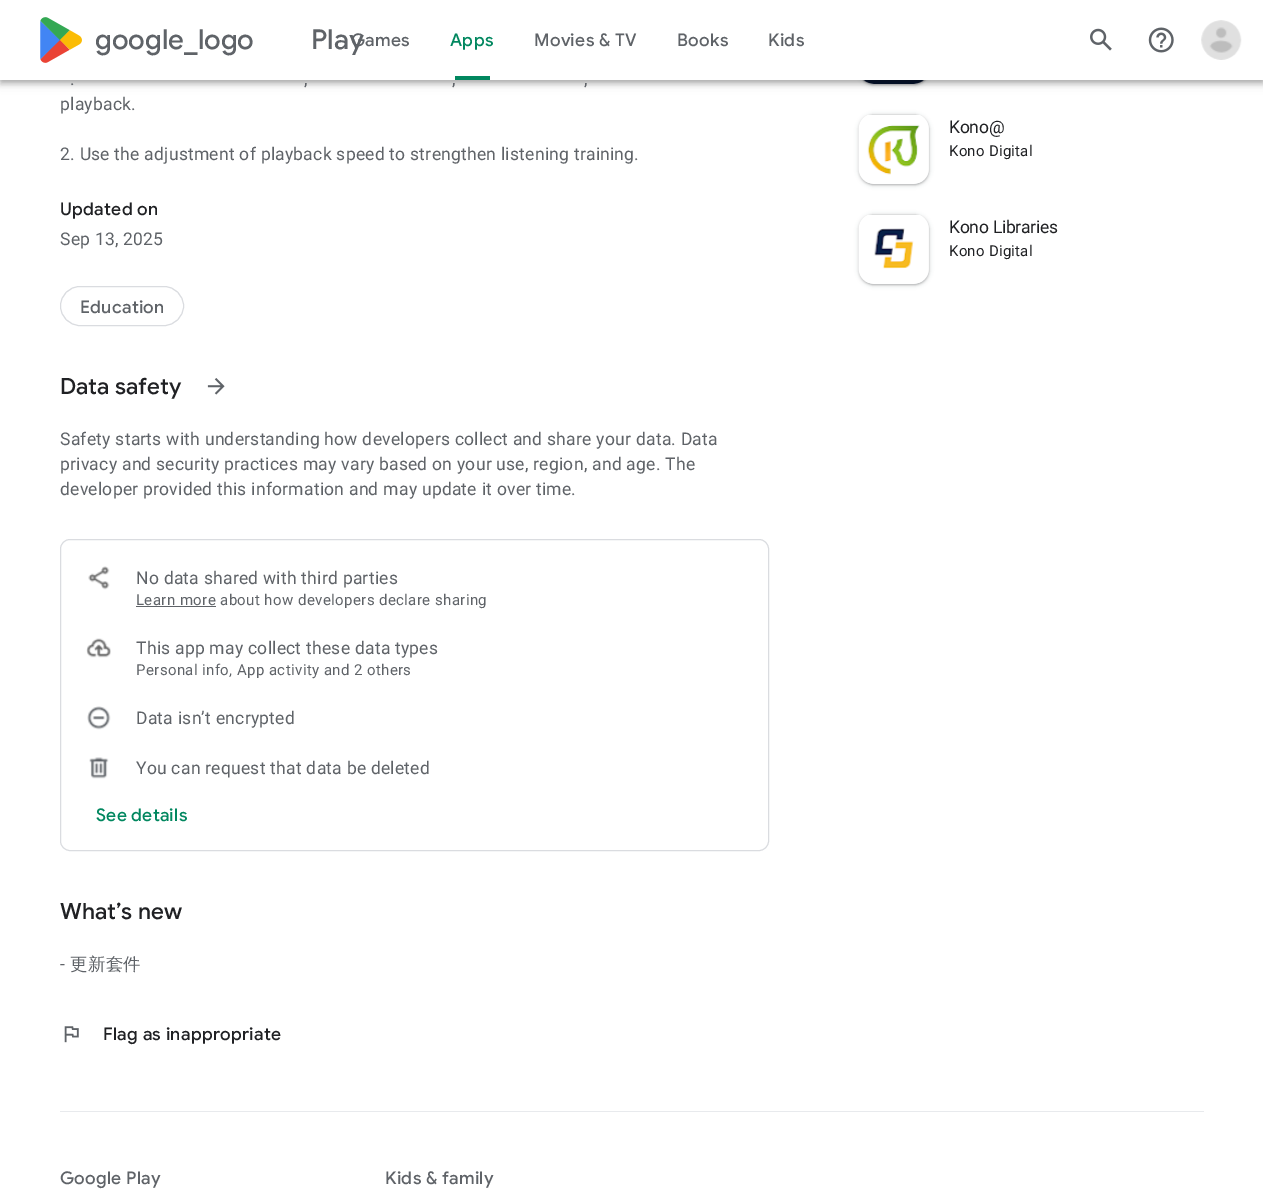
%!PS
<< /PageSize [1263 1198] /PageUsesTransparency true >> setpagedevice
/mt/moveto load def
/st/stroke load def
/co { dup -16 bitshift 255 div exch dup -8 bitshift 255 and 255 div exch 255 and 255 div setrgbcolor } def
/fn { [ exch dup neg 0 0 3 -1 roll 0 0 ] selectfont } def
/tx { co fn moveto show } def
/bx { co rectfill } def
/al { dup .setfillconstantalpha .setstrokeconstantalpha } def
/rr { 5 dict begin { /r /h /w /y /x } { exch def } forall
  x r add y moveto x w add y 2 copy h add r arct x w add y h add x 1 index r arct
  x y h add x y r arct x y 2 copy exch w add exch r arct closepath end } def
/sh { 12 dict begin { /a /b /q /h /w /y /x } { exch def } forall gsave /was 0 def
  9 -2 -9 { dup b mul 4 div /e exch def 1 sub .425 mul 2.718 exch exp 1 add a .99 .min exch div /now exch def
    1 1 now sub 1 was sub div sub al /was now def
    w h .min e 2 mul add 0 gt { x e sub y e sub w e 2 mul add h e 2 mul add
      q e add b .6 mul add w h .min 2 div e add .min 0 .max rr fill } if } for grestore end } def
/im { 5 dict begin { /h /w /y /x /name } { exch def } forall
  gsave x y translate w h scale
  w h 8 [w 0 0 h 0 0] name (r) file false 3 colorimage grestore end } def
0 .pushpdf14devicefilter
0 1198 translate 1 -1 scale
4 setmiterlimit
0 0 1263 1198 16#FFFFFF bx
16#3C4043 co
858 14 72 72 16 2 .15 sh
859 15 70 70 15 1 .3 sh
(media/11.raw) 863 80 61 4 im
16#000000 co
1 4 1262 77 0 2.5 .2 sh
0 1 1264 80 0 6 .12 sh
0 5 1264 80 0 3 .14 sh
0 0 1263 80 16#FFFFFF bx
(media/1.raw) 40 17 42 46 im
455 76 35 4 16#01875F bx
(media/2.raw) 1090 28 22 23 im
(media/3.raw) 1148 27 26 26 im
(media/4.raw) 1201 20 41 40 im
16#DADCE0 co
60.5 286.5 123 39 19.5 rr st
(media/5.raw) 207 378 18 17 im
60.5 539.5 708 311 9.5 rr st
(media/6.raw) 88 566 22 24 im
136 606 80 1 16#5F6368 bx
(media/7.raw) 86 638 25 20 im
(media/8.raw) 87 706 24 24 im
(media/9.raw) 89 757 20 22 im
(media/10.raw) 64 1026 15 17 im
16#3C4043 co
858 114 72 72 16 2 .15 sh
859 115 70 70 15 1 .3 sh
(media/12.raw) 858 115 71 69 im
858 214 72 72 16 2 .15 sh
859 215 70 70 15 1 .3 sh
(media/13.raw) 858 215 71 69 im
60 1111 1144 1 16#E8EAED bx
/GoogleSans-Medium 27.5 fn
16#5F6368 co
95 49 mt 69 0 32 (google_logo) widthshow
311 49 mt 69 0 32 (Play) widthshow
/GoogleSans-Medium 17.5 fn
351 46 mt .3 0 (Games) ashow
16#01875F co
450 46 mt .3 0 (Apps) ashow
16#5F6368 co
534 46 mt .3 0 (Movies & TV) ashow
677 46 mt .3 0 (Books) ashow
768 46 mt .3 0 (Kids) ashow
/Roboto-Regular 17.5 fn
70 85 mt .25 0 (.) ashow
304 85 mt .25 0 (,) ashow
452 85 mt .25 0 (,) ashow
584 85 mt .25 0 (,) ashow
60 110 mt .25 0 (playback.) ashow
60 160 mt .25 0 (2. Use the adjustment of playback speed to strengthen listening training.) ashow
/GoogleSans-Medium 17.5 fn
16#202124 co
60 215 mt .3 0 (Updated on) ashow
/Roboto-Regular 17.5 fn
16#5F6368 co
60 245 mt .25 0 (Sep 13, 2025) ashow
/GoogleSans-Medium 17.5 fn
80 313 mt .25 0 (Education) ashow
(Data safety) 60 394 /GoogleSans-Medium 22.5 16#202124 tx
/Roboto-Regular 17.5 fn
16#5F6368 co
60 445 mt .25 0 (Safety starts with understanding how developers collect and share your data. Data) ashow
60 470 mt .25 0 (privacy and security practices may vary based on your use, region, and age. The) ashow
60 495 mt .25 0 (developer provided this information and may update it over time.) ashow
136 584 mt .25 0 (No data shared with third parties) ashow
/Roboto-Regular 15 fn
136 605 mt .4 0 (Learn more about how developers declare sharing) ashow
/Roboto-Regular 17.5 fn
136 654 mt .25 0 (This app may collect these data types) ashow
/Roboto-Regular 15 fn
136 675 mt .4 0 (Personal info, App activity and 2 others) ashow
/Roboto-Regular 17.5 fn
136 724 mt .25 0 (Data isn’t encrypted) ashow
136 774 mt .25 0 (You can request that data be deleted) ashow
/GoogleSans-Medium 17.5 fn
16#01875F co
96 821 mt .25 0 (See details) ashow
(What’s new) 60 919 /GoogleSans-Medium 22.5 16#202124 tx
/Roboto-Regular 17.5 fn
16#5F6368 co
60 970 mt .25 0 (-) ashow
/WenQuanYiZenHei-Medium 17.5 fn
70 970 mt .25 0 (更新套件) ashow
/GoogleSans-Medium 17.5 fn
16#202124 co
103 1040 mt .3 0 (Flag as inappropriate) ashow
/Roboto-Regular 17.5 fn
949 133 mt -.25 0 (Kono@) ashow
/Roboto-Regular 15 fn
949 156 mt .25 0 (Kono Digital) ashow
/Roboto-Regular 17.5 fn
949 233 mt -.25 0 (Kono Libraries) ashow
/Roboto-Regular 15 fn
949 256 mt .25 0 (Kono Digital) ashow
/GoogleSans-Medium 17.5 fn
16#5F6368 co
60 1184 mt .3 0 (Google Play) ashow
385 1184 mt .3 0 (Kids & family) ashow
.poppdf14devicefilter showpage
